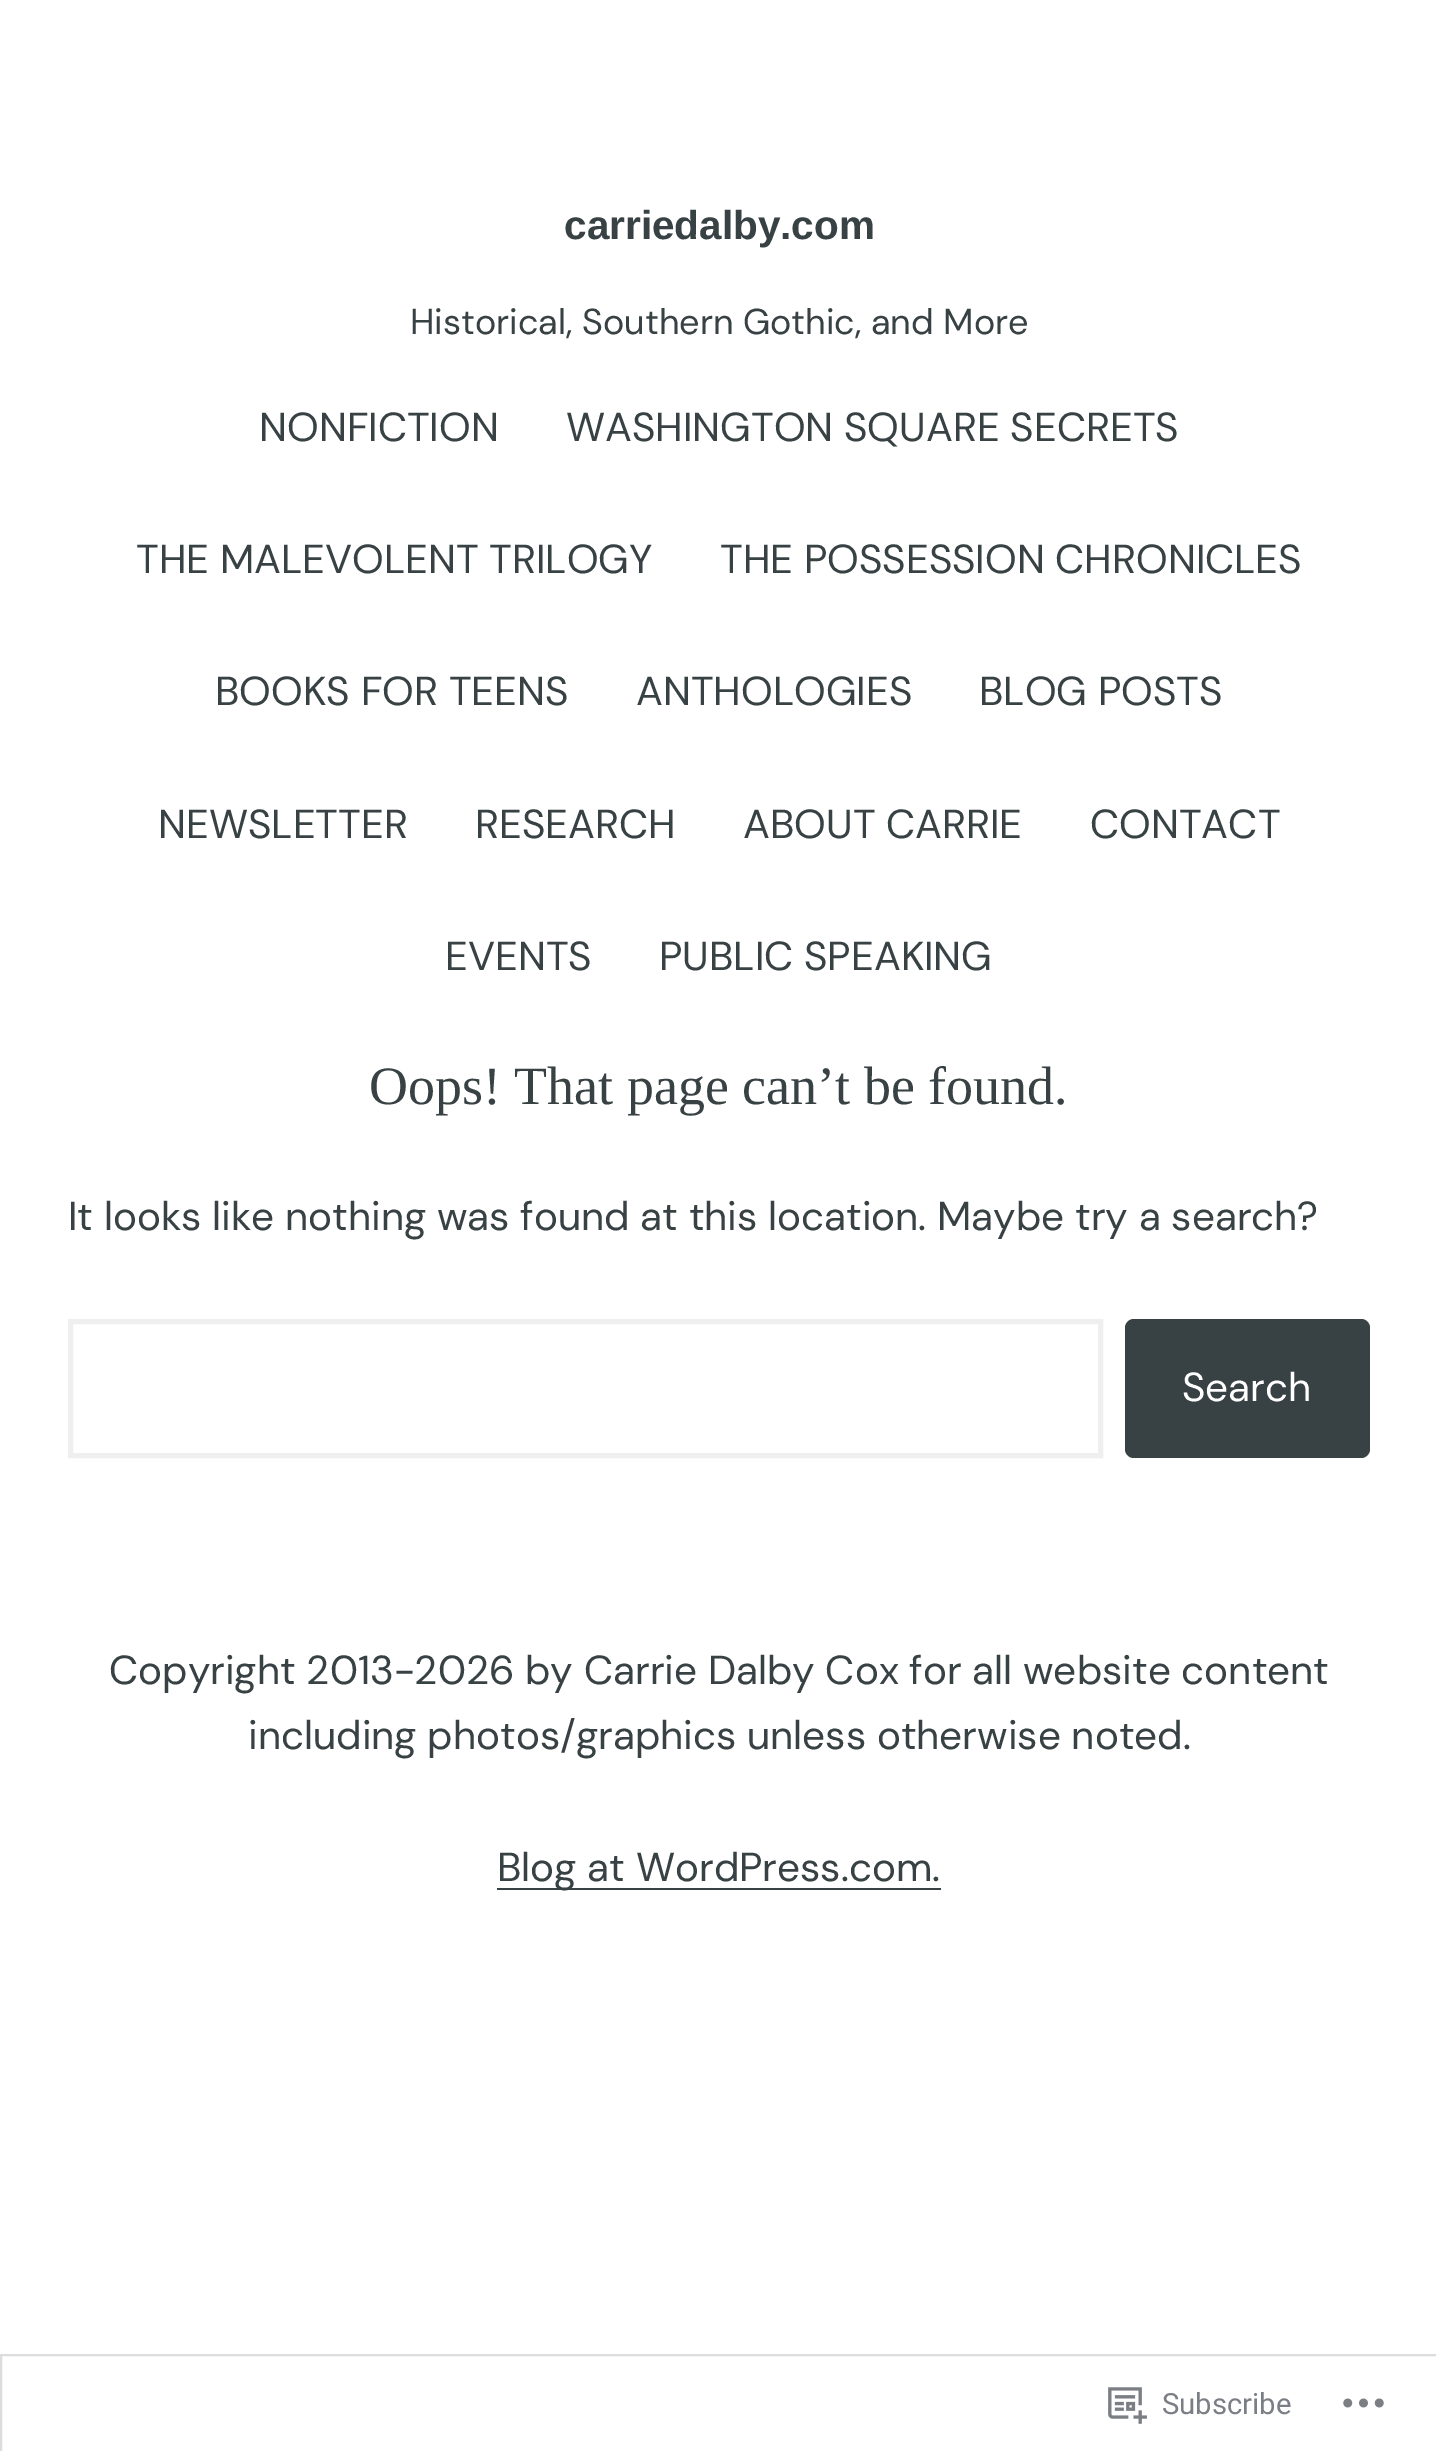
%!PS
<< /PageSize [1436 2451] >> setpagedevice
/fl/fill load def
/lw/setlinewidth load def
/co { dup -16 bitshift 255 div exch dup -8 bitshift 255 and 255 div exch 255 and 255 div setrgbcolor } def
/fn { [ exch dup neg 0 0 3 -1 roll 0 0 ] selectfont } def
/tx { co fn moveto show } def
/bx { co rectfill } def
/rr { 5 dict begin { /r /h /w /y /x } { exch def } forall
  x r add y moveto x w add y 2 copy h add r arct x w add y h add x 1 index r arct
  x y h add x y r arct x y 2 copy exch w add exch r arct closepath end } def
/im { 5 dict begin { /h /w /y /x /name } { exch def } forall
  gsave x y translate w h scale
  w h 8 [w 0 0 h 0 0] name (r) file false 3 colorimage grestore end } def
0 2451 translate 1 -1 scale
4 setmiterlimit
0 0 1436 2451 16#FFFFFF bx
16#EFEFEF co
5 lw
70.5 1321.5 1030 134 rectstroke
16#384143 co
1125 1319 245 139 9 rr fl
497 1888 444 2 16#384143 bx
16#DDDDDF co
2 lw
1 2355 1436 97 rectstroke
(media/1.raw) 1108 2387 39 37 im
(media/2.raw) 1343 2398 41 10 im
(carriedalby.com) 564 239 /LiberationSans-Bold 40.5 16#384143 tx
(Historical, Southern Gothic, and More) 410 334 /DMSans-Regular 36 16#384143 tx
(NONFICTION) 259 441 /DMSans-Regular 40.5 16#384143 tx
(WASHINGTON SQUARE SECRETS) 566 441 /DMSans-Regular 40.5 16#384143 tx
(THE MALEVOLENT TRILOGY) 136 573 /DMSans-Regular 40.5 16#384143 tx
(THE POSSESSION CHRONICLES) 720 573 /DMSans-Regular 40.5 16#384143 tx
(BOOKS FOR TEENS) 215 705 /DMSans-Regular 40.5 16#384143 tx
(ANTHOLOGIES) 636 705 /DMSans-Regular 40.5 16#384143 tx
(BLOG POSTS) 979 705 /DMSans-Regular 40.5 16#384143 tx
(NEWSLETTER) 158 838 /DMSans-Regular 40.5 16#384143 tx
(RESEARCH) 475 838 /DMSans-Regular 40.5 16#384143 tx
(ABOUT CARRIE) 743 838 /DMSans-Regular 40.5 16#384143 tx
(CONTACT) 1090 838 /DMSans-Regular 40.5 16#384143 tx
(EVENTS) 445 970 /DMSans-Regular 40.5 16#384143 tx
(PUBLIC SPEAKING) 659 970 /DMSans-Regular 40.5 16#384143 tx
(Oops! That page can’t be found.) 369 1104 /LiberationSerif-Regular 54 16#384143 tx
(It looks like nothing was found at this location. Maybe try a search?) 68 1230 /DMSans-Regular 40.5 16#384143 tx
(Search) 1182 1401 /DMSans-Regular 40.5 16#FFFFFF tx
(Copyright 2013-2026 by Carrie Dalby Cox for all website content) 109 1684 /DMSans-Regular 40.5 16#384143 tx
(including photos/graphics unless otherwise noted.) 248 1749 /DMSans-Regular 40.5 16#384143 tx
(Blog at WordPress.com.) 497 1881 /DMSans-Regular 40.5 16#384143 tx
(Subscribe) 1162 2414 /Roboto-Regular 29.25 16#7B7F85 tx
showpage
